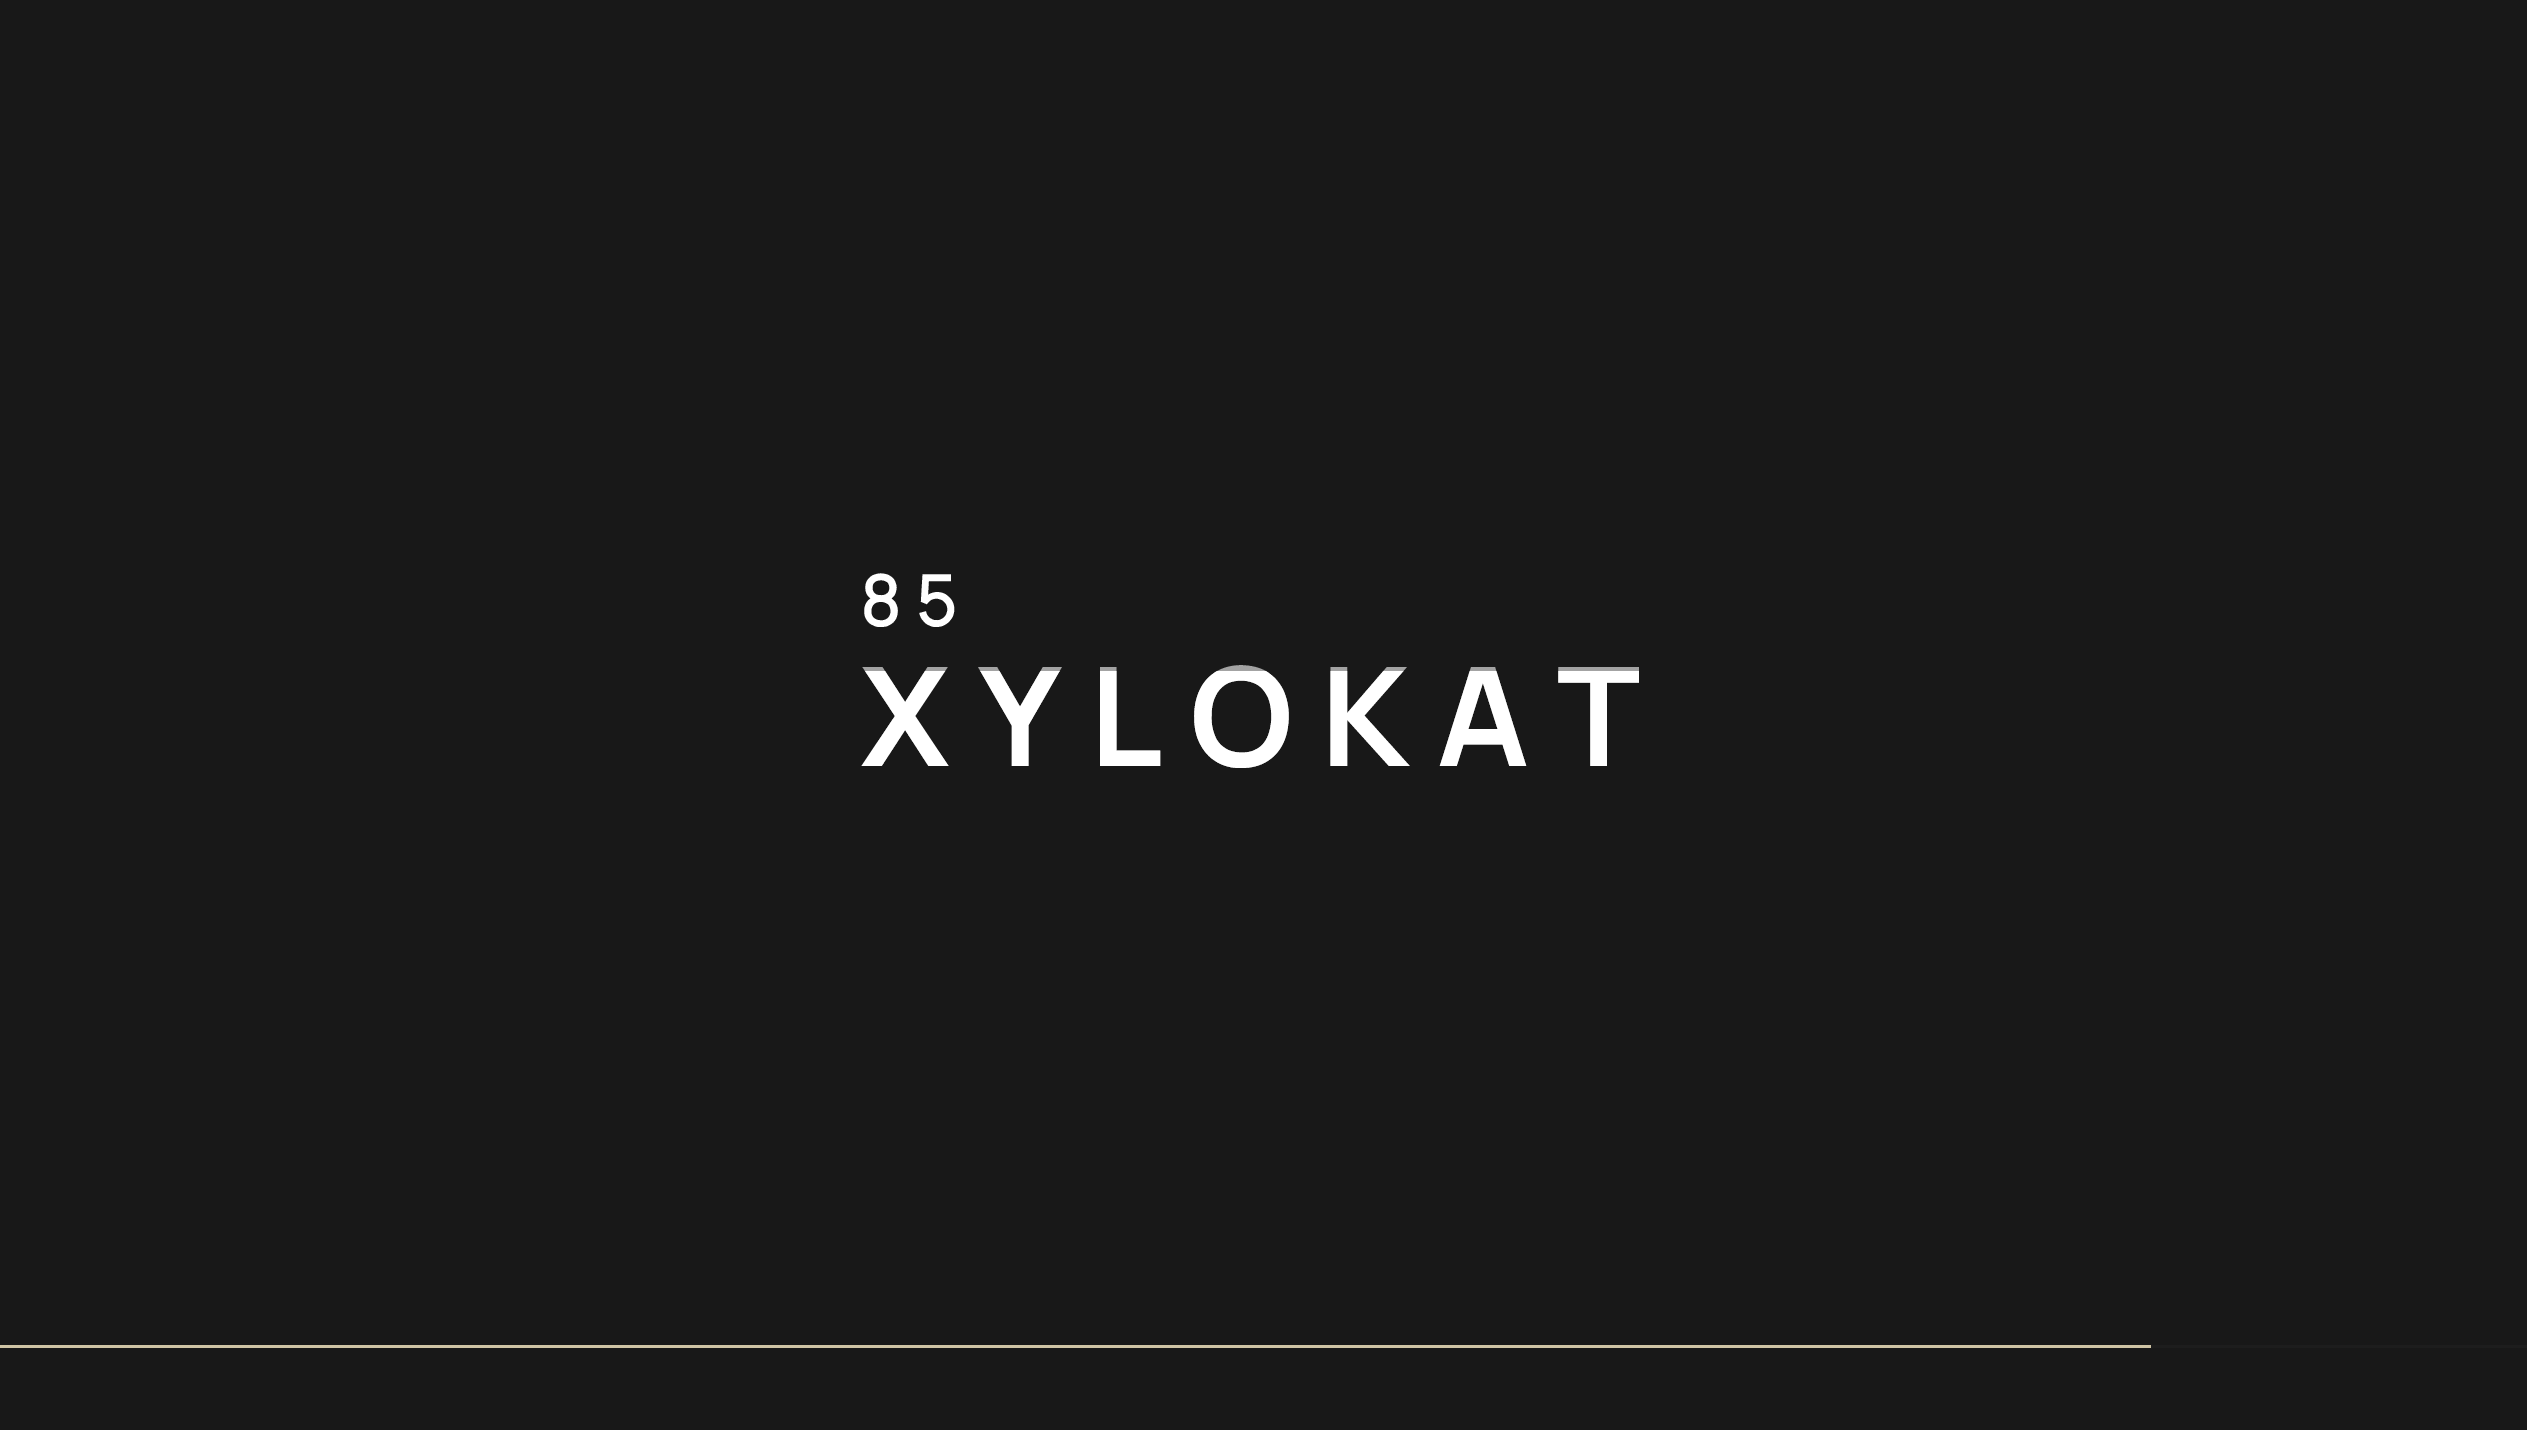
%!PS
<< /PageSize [2527 1430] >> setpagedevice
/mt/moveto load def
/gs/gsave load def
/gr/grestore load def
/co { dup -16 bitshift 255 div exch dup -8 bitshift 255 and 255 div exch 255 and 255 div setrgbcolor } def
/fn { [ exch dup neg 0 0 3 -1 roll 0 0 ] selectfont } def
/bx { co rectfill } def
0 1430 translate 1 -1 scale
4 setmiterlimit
0 0 2527 1430 16#181818 bx
2151 1345 376 3 16#1D1D1D bx
0 1345 2151 3 16#CFC4A5 bx
/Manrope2-Bold 69 fn
16#FFFFFF co
860 626 mt 16 0 (85) ashow
/Manrope-Bold 137.5 fn
16#A3A3A3 co
860 766 mt 27.5 0 (XYLOKAT) ashow
gs
861 671 806 107 rectclip
16#FFFFFF co
860 766 mt 27.5 0 (XYLOKAT) ashow
gr
showpage
